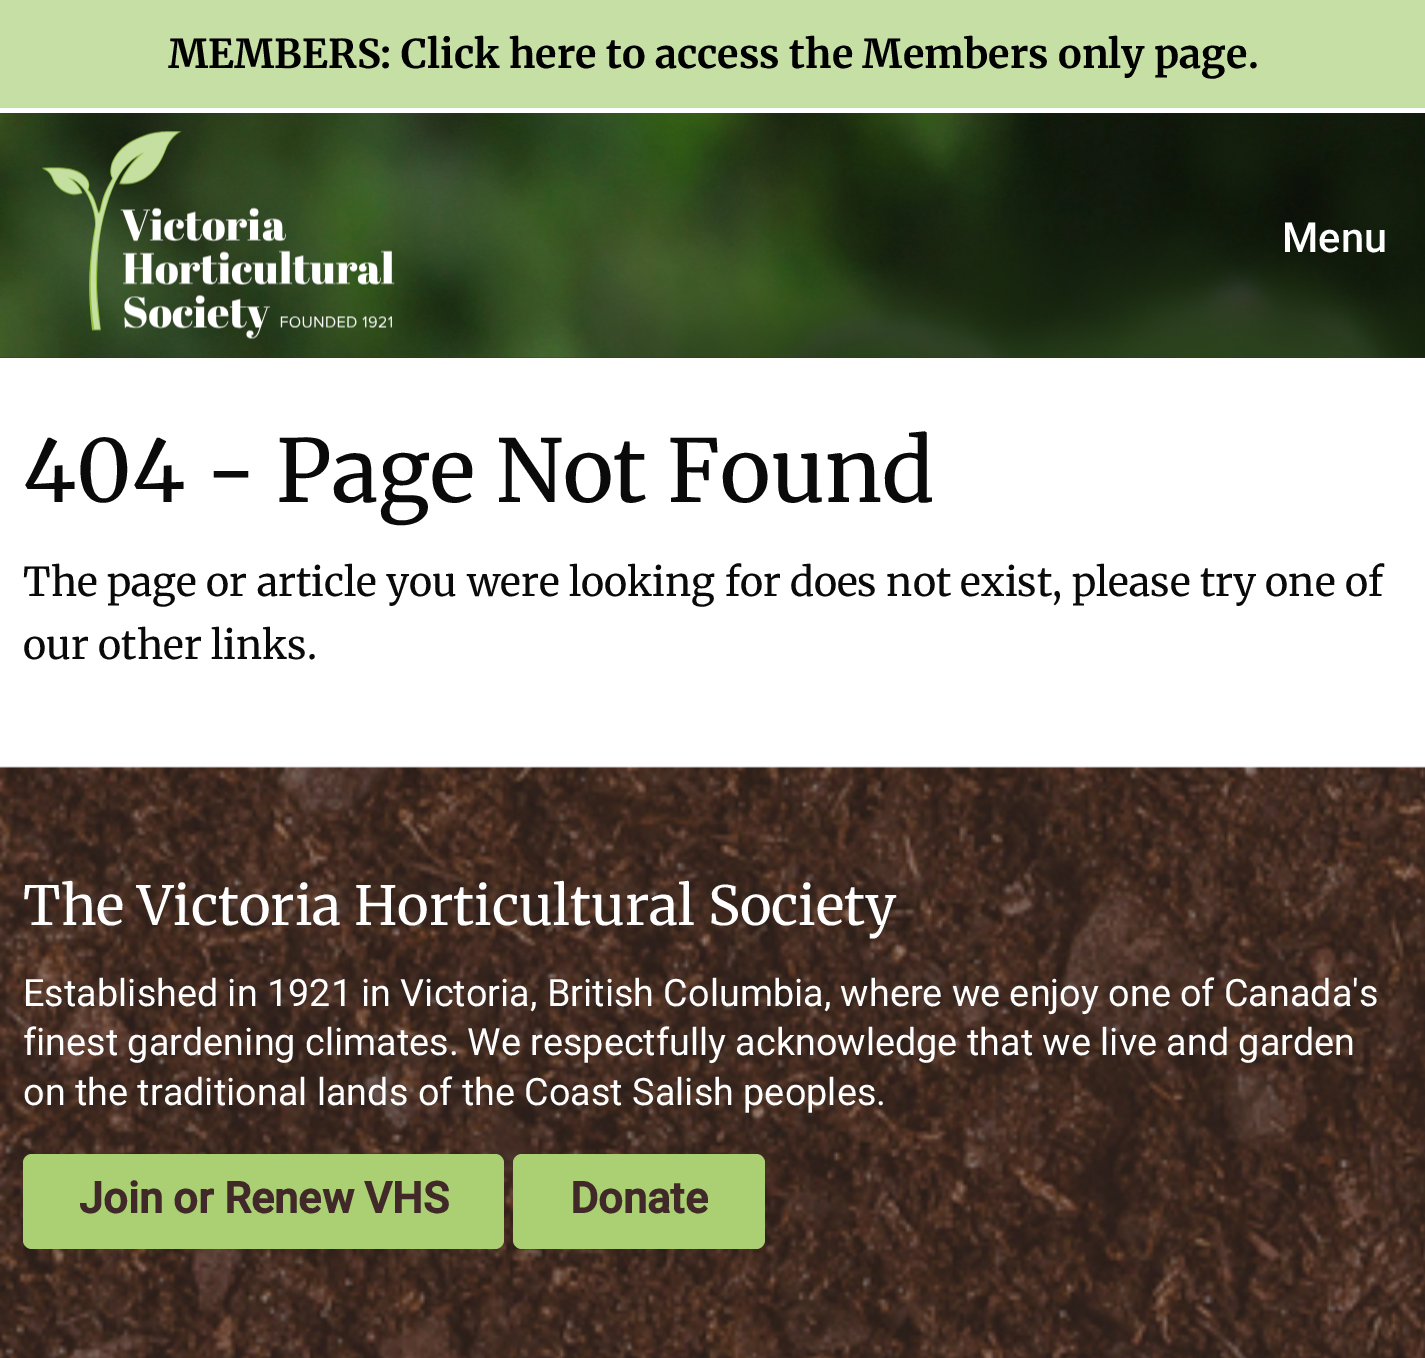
%!PS
<< /PageSize [1425 1358] >> setpagedevice
/mt/moveto load def
/fl/fill load def
/co { dup -16 bitshift 255 div exch dup -8 bitshift 255 and 255 div exch 255 and 255 div setrgbcolor } def
/fn { [ exch dup neg 0 0 3 -1 roll 0 0 ] selectfont } def
/tx { co fn moveto show } def
/bx { co rectfill } def
/rr { 5 dict begin { /r /h /w /y /x } { exch def } forall
  x r add y moveto x w add y 2 copy h add r arct x w add y h add x 1 index r arct
  x y h add x y r arct x y 2 copy exch w add exch r arct closepath end } def
/im { 5 dict begin { /h /w /y /x /name } { exch def } forall
  gsave x y translate w h scale
  w h 8 [w 0 0 h 0 0] name (r) file false 3 colorimage grestore end } def
0 1358 translate 1 -1 scale
4 setmiterlimit
0 0 1425 1358 16#FFFFFF bx
0 0 1425 108 16#C6DFA4 bx
(media/1.raw) 0 113 1425 245 im
(media/2.raw) 42 131 353 208 im
(media/3.raw) 0 766 1425 592 im
16#ABCF73 co
23 1154 481 95 9 rr fl
513 1154 252 95 9 rr fl
(MEMBERS: Click here to access the Members only page.) 168 68 /Merriweather-Bold 39.6 16#000000 tx
(Menu) 1282 252 /Roboto-Medium 41.5 16#FFFFFF tx
(404 - Page Not Found) 23 502 /Merriweather-Regular 86.4 16#0A0A0A tx
(The page or article you were looking for does not exist, please try one of) 23 596 /Merriweather-Regular 39.6 16#0A0A0A tx
(our other links.) 23 659 /Merriweather-Regular 39.6 16#0A0A0A tx
(The Victoria Horticultural Society) 23 925 /Merriweather-Regular 54 16#FFFFFF tx
/Roboto-Regular 37.8 fn
23 1006 mt -.1 0 32 (Established in 1921 in Victoria, British Columbia, where we enjoy one of Canada's) widthshow
(finest gardening climates.) 23 1055 /Roboto-Regular 37.8 16#FFFFFF tx
(We respectfully acknowledge that we live and garden) 467 1055 /Roboto-Regular 37.8 16#FFFFFF tx
(on the traditional lands of the Coast Salish peoples.) 23 1105 /Roboto-Regular 37.8 16#FFFFFF tx
(Join or Renew VHS) 79 1213 /Roboto-Bold 43.25 16#412929 tx
(Donate) 570 1213 /Roboto-Bold 43.25 16#412929 tx
showpage
